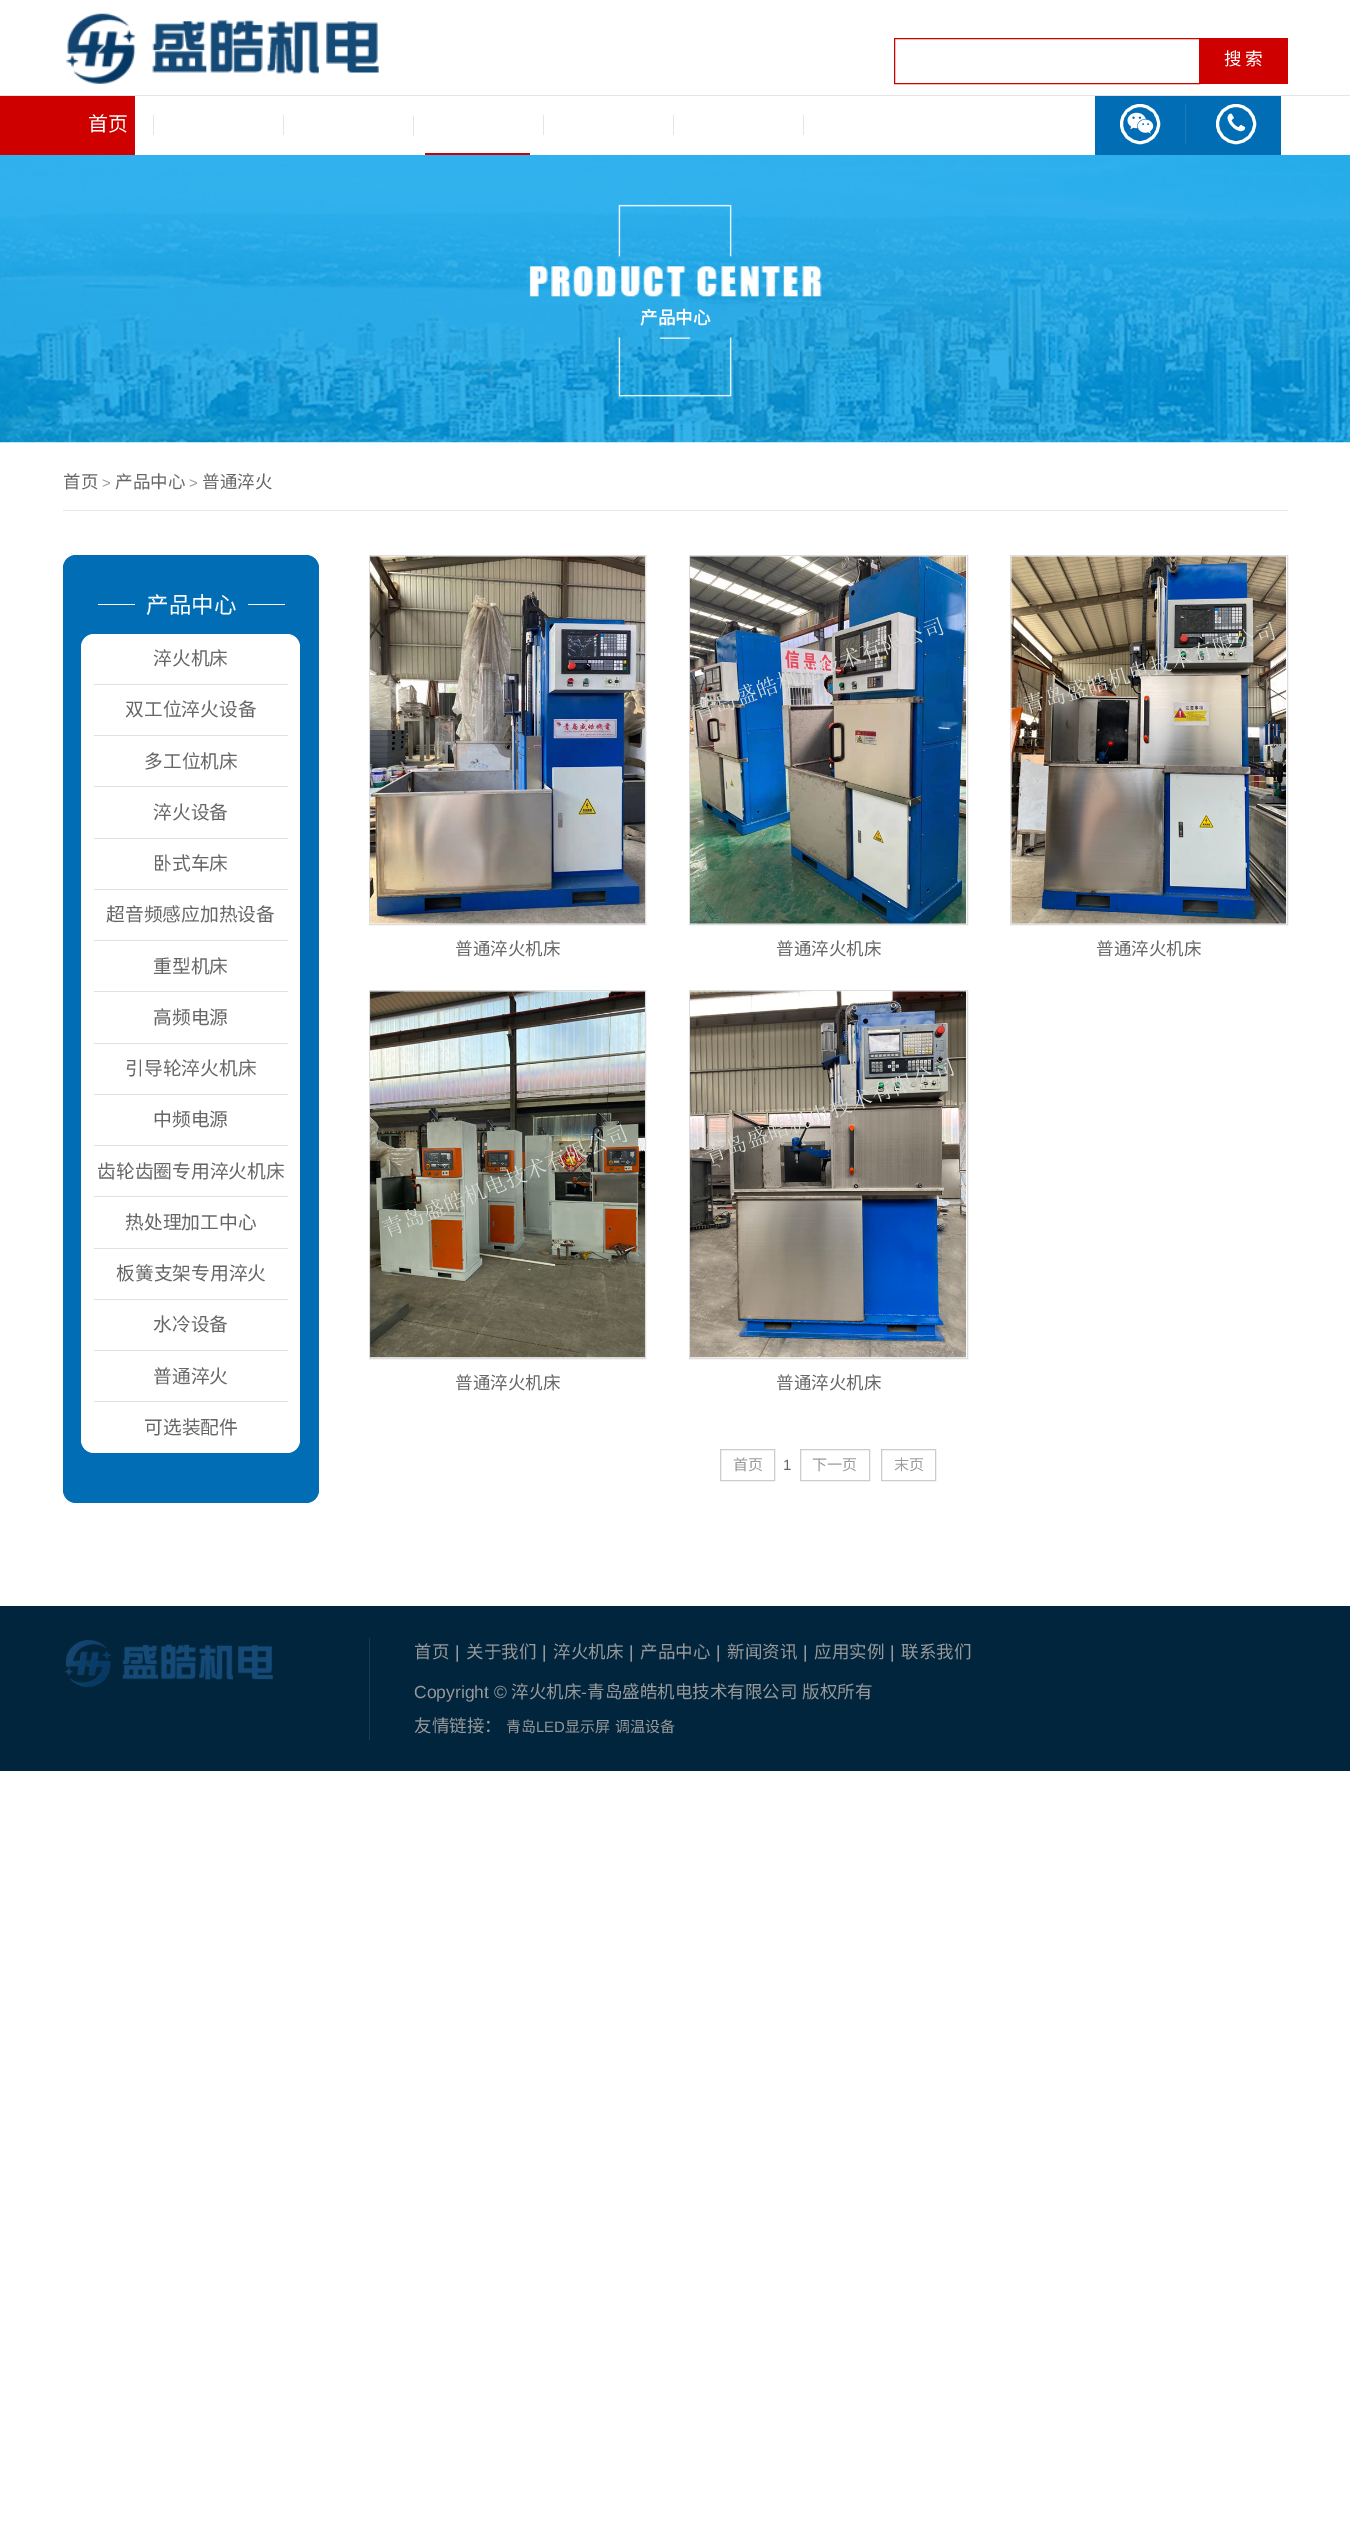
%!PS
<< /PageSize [1350 2548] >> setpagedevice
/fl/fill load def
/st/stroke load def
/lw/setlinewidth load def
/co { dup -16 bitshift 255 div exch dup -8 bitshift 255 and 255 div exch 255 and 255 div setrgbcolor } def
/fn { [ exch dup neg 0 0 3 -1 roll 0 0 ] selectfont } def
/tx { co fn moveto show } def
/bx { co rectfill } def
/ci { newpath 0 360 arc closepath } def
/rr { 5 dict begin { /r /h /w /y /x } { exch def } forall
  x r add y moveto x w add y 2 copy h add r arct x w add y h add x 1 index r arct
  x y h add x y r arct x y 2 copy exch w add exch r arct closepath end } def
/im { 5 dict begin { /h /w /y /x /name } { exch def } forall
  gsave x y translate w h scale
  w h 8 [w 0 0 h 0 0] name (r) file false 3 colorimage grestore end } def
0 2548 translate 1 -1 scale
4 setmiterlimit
0 0 1350 2548 16#FFFFFF bx
(media/1.raw) 66 13 313 71 im
16#CE0100 co
894.5 38.5 305 45 rectstroke
1200 38 88 46 16#CE0100 bx
0 95 1350 1 16#E5E5E5 bx
0 96 135 59 16#CE0100 bx
153 115 1 20 16#E5E5E5 bx
283 115 1 20 16#E5E5E5 bx
425 153 105 2 16#CE0100 bx
413 116 1 20 16#E5E5E5 bx
543 115 1 20 16#E5E5E5 bx
673 115 1 20 16#E5E5E5 bx
803 115 1 20 16#E5E5E5 bx
1095 96 186 59 16#006DB5 bx
1185 104 1 40 16#1A7CBD bx
16#FFFFFF co
3 lw
1140 124 18.5 ci st
(media/2.raw) 1127 112 27 22 im
1236 124 18.5 ci st
(media/3.raw) 1227 113 19 19 im
(media/4.raw) 0 155 1350 288 im
63 510 1225 1 16#E7E7E7 bx
16#006DB5 co
63 555 256 948 13 rr fl
98 604 37 1 16#FFFFFF bx
248 604 37 1 16#FFFFFF bx
81 634 219 819 13 rr fl
94 684 194 1 16#E1E1E1 bx
94 735 194 1 16#E1E1E1 bx
94 786 194 1 16#E1E1E1 bx
94 838 194 1 16#E1E1E1 bx
94 889 194 1 16#E1E1E1 bx
94 940 194 1 16#E1E1E1 bx
94 991 194 1 16#E1E1E1 bx
94 1043 194 1 16#E1E1E1 bx
94 1094 194 1 16#E1E1E1 bx
94 1145 194 1 16#E1E1E1 bx
94 1196 194 1 16#E1E1E1 bx
94 1248 194 1 16#E1E1E1 bx
94 1299 194 1 16#E1E1E1 bx
94 1350 194 1 16#E1E1E1 bx
94 1401 194 1 16#E1E1E1 bx
16#DDDDDD co
1 lw
369.5 555.5 276 369 rectstroke
(media/5.raw) 370 556 275 368 im
689.5 555.5 278 369 rectstroke
(media/6.raw) 690 556 277 368 im
1010.5 555.5 277 369 rectstroke
(media/7.raw) 1011 556 276 368 im
369.5 990.5 276 368 rectstroke
(media/8.raw) 370 991 275 367 im
689.5 990.5 278 368 rectstroke
(media/9.raw) 690 991 277 367 im
16#CCCCCC co
720.5 1449.5 54 31 rectstroke
800.5 1449.5 69 31 rectstroke
881.5 1449.5 54 31 rectstroke
0 1606 1350 165 16#00253D bx
(media/10.raw) 65 1640 208 47 im
369 1638 1 102 16#1A3B51 bx
(搜 索) 1224 65 /NotoSansCJKSC-Regular 17.5 16#FFFFFF tx
(首页) 88 131 /NotoSansCJKSC-Regular 20 16#FFFFFF tx
(产品中心) 640 324 /NotoSansCJKSC-Bold 17.5 16#FFFFFF tx
(首页) 63 488 /NotoSansCJKSC-Regular 17.5 16#666666 tx
(>) 102 488 /LiberationSans-Regular 15 16#999999 tx
(产品中心) 115 488 /NotoSansCJKSC-Regular 17.5 16#666666 tx
(>) 189 488 /LiberationSans-Regular 15 16#999999 tx
(普通淬火) 202 488 /NotoSansCJKSC-Regular 17.5 16#666666 tx
(产品中心) 146 613 /NotoSansCJKSC-Regular 22.5 16#FFFFFF tx
(淬火机床) 153 665 /NotoSansCJKSC-Regular 18.75 16#666666 tx
(双工位淬火设备) 125 716 /NotoSansCJKSC-Regular 18.75 16#666666 tx
(多工位机床) 144 768 /NotoSansCJKSC-Regular 18.75 16#666666 tx
(淬火设备) 153 819 /NotoSansCJKSC-Regular 18.75 16#666666 tx
(卧式车床) 153 870 /NotoSansCJKSC-Regular 18.75 16#666666 tx
(超音频感应加热设备) 106 921 /NotoSansCJKSC-Regular 18.75 16#666666 tx
(重型机床) 153 973 /NotoSansCJKSC-Regular 18.75 16#666666 tx
(高频电源) 153 1024 /NotoSansCJKSC-Regular 18.75 16#666666 tx
(引导轮淬火机床) 125 1075 /NotoSansCJKSC-Regular 18.75 16#666666 tx
(中频电源) 153 1126 /NotoSansCJKSC-Regular 18.75 16#666666 tx
(齿轮齿圈专用淬火机床) 97 1178 /NotoSansCJKSC-Regular 18.75 16#666666 tx
(热处理加工中心) 125 1229 /NotoSansCJKSC-Regular 18.75 16#666666 tx
(板簧支架专用淬火) 116 1280 /NotoSansCJKSC-Regular 18.75 16#666666 tx
(水冷设备) 153 1331 /NotoSansCJKSC-Regular 18.75 16#666666 tx
(普通淬火) 153 1383 /NotoSansCJKSC-Regular 18.75 16#666666 tx
(可选装配件) 144 1434 /NotoSansCJKSC-Regular 18.75 16#666666 tx
(普通淬火机床) 455 955 /NotoSansCJKSC-Regular 17.5 16#666666 tx
(普通淬火机床) 776 955 /NotoSansCJKSC-Regular 17.5 16#666666 tx
(普通淬火机床) 1096 955 /NotoSansCJKSC-Regular 17.5 16#666666 tx
(普通淬火机床) 455 1389 /NotoSansCJKSC-Regular 17.5 16#666666 tx
(普通淬火机床) 776 1389 /NotoSansCJKSC-Regular 17.5 16#666666 tx
(首页) 733 1470 /NotoSansCJKSC-Regular 15 16#999999 tx
(1) 783 1470 /LiberationSans-Regular 15 16#666666 tx
(下一页) 812 1470 /NotoSansCJKSC-Regular 15 16#999999 tx
(末页) 894 1470 /NotoSansCJKSC-Regular 15 16#999999 tx
(首页) 414 1658 /NotoSansCJKSC-Regular 17.5 16#999999 tx
(|) 455 1658 /LiberationSans-Regular 17.5 16#999999 tx
(关于我们) 466 1658 /NotoSansCJKSC-Regular 17.5 16#999999 tx
(|) 542 1658 /LiberationSans-Regular 17.5 16#999999 tx
(淬火机床) 553 1658 /NotoSansCJKSC-Regular 17.5 16#999999 tx
(|) 629 1658 /LiberationSans-Regular 17.5 16#999999 tx
(产品中心) 640 1658 /NotoSansCJKSC-Regular 17.5 16#999999 tx
(|) 716 1658 /LiberationSans-Regular 17.5 16#999999 tx
(新闻资讯) 727 1658 /NotoSansCJKSC-Regular 17.5 16#999999 tx
(|) 803 1658 /LiberationSans-Regular 17.5 16#999999 tx
(应用实例) 814 1658 /NotoSansCJKSC-Regular 17.5 16#999999 tx
(|) 890 1658 /LiberationSans-Regular 17.5 16#999999 tx
(联系我们) 901 1658 /NotoSansCJKSC-Regular 17.5 16#999999 tx
(Copyright ©) 414 1698 /LiberationSans-Regular 17.5 16#999999 tx
(淬火机床) 511 1698 /NotoSansCJKSC-Regular 17.5 16#999999 tx
(-) 581 1698 /LiberationSans-Regular 17.5 16#999999 tx
(青岛盛皓机电技术有限公司) 587 1698 /NotoSansCJKSC-Regular 17.5 16#999999 tx
(版权所有) 802 1698 /NotoSansCJKSC-Regular 17.5 16#999999 tx
(友情链接：) 414 1732 /NotoSansCJKSC-Regular 17.5 16#999999 tx
(青岛) 506 1732 /NotoSansCJKSC-Regular 15 16#999999 tx
(LED) 536 1732 /LiberationSans-Regular 15 16#999999 tx
(显示屏) 565 1732 /NotoSansCJKSC-Regular 15 16#999999 tx
(调温设备) 615 1732 /NotoSansCJKSC-Regular 15 16#999999 tx
showpage
